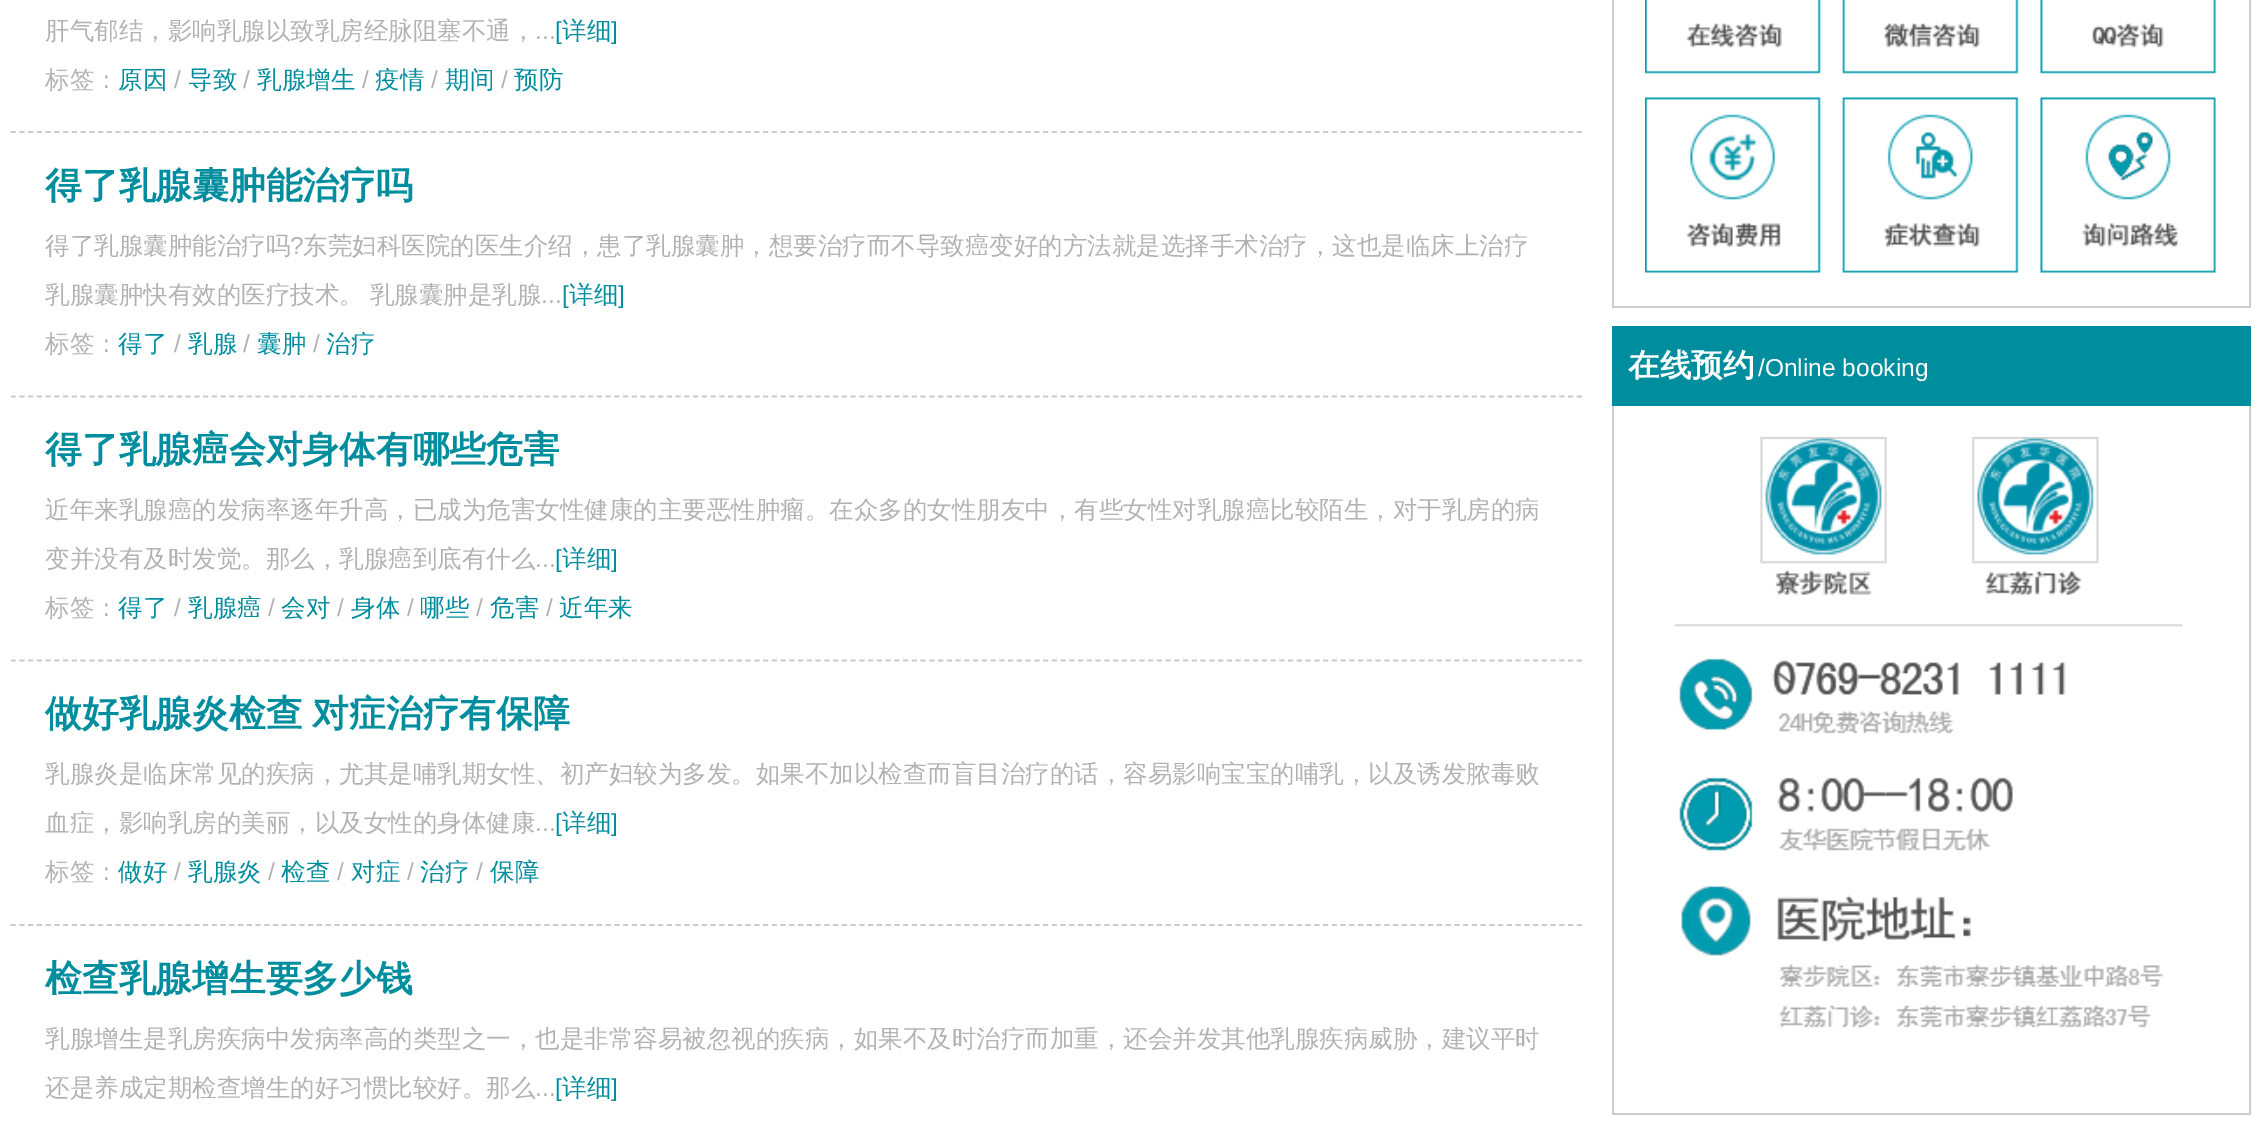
%!PS
<< /PageSize [2258 1122] >> setpagedevice
/mt/moveto load def
/li/lineto load def
/st/stroke load def
/gs/gsave load def
/gr/grestore load def
/lw/setlinewidth load def
/co { dup -16 bitshift 255 div exch dup -8 bitshift 255 and 255 div exch 255 and 255 div setrgbcolor } def
/fn { [ exch dup neg 0 0 3 -1 roll 0 0 ] selectfont } def
/tx { co fn moveto show } def
/bx { co rectfill } def
/im { 5 dict begin { /h /w /y /x /name } { exch def } forall
  gsave x y translate w h scale
  w h 8 [w 0 0 h 0 0] name (r) file false 3 colorimage grestore end } def
0 1122 translate 1 -1 scale
4 setmiterlimit
0 0 2258 1122 16#FFFFFF bx
16#CCCCCC co
1.8 lw
[5.25 3.5] 0 setdash
10.5 132 mt 1582 132 li st
gs
11 0 1575 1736 rectclip
10.5 396.5 mt 1582 396.5 li st
10.5 660.5 mt 1582 660.5 li st
gr
10.5 925 mt 1582 925 li st
2249 0 2 308 16#CCCCCC bx
1612 306 639 2 16#CCCCCC bx
1612 0 2 308 16#CCCCCC bx
(media/1.raw) 1645 0 571 273 im
1612 326 639 80 16#008D9E bx
2249 406 2 709 16#CCCCCC bx
1612 1113 639 2 16#CCCCCC bx
1612 406 2 709 16#CCCCCC bx
(media/2.raw) 1674 437 509 592 im
(肝气郁结，影响乳腺以致乳房经脉阻塞不通，) 45 39 /WenQuanYiZenHei-Medium 24.5 16#B2B2B2 tx
(...) 535 39 /LiberationSans-Regular 24.5 16#B2B2B2 tx
([) 555 39 /LiberationSans-Regular 24.5 16#008D9E tx
(详细) 562 39 /WenQuanYiZenHei-Medium 24.5 16#008D9E tx
(]) 611 39 /LiberationSans-Regular 24.5 16#008D9E tx
(标签：) 45 88 /WenQuanYiZenHei-Medium 24.5 16#B2B2B2 tx
(原因) 118 88 /WenQuanYiZenHei-Medium 24.5 16#008D9E tx
(/) 174 88 /LiberationSans-Regular 24.5 16#B2B2B2 tx
(导致) 188 88 /WenQuanYiZenHei-Medium 24.5 16#008D9E tx
(/) 243 88 /LiberationSans-Regular 24.5 16#B2B2B2 tx
(乳腺增生) 257 88 /WenQuanYiZenHei-Medium 24.5 16#008D9E tx
(/) 362 88 /LiberationSans-Regular 24.5 16#B2B2B2 tx
(疫情) 375 88 /WenQuanYiZenHei-Medium 24.5 16#008D9E tx
(/) 431 88 /LiberationSans-Regular 24.5 16#B2B2B2 tx
(期间) 445 88 /WenQuanYiZenHei-Medium 24.5 16#008D9E tx
(/) 501 88 /LiberationSans-Regular 24.5 16#B2B2B2 tx
(预防) 514 88 /WenQuanYiZenHei-Medium 24.5 16#008D9E tx
(得了乳腺囊肿能治疗吗) 45 198 /WenQuanYiZenHei-Bold 36.75 16#008D9E tx
(得了乳腺囊肿能治疗吗) 45 254 /WenQuanYiZenHei-Medium 24.5 16#B2B2B2 tx
(?) 290 254 /LiberationSans-Regular 24.5 16#B2B2B2 tx
(东莞妇科医院的医生介绍，患了乳腺囊肿，想要治疗而不导致癌变好的方法就是选择手术治疗，这也是临床上治疗) 303 254 /WenQuanYiZenHei-Medium 24.5 16#B2B2B2 tx
45 303 mt -1 0 32 (乳腺囊肿快有效的医疗技术。 乳腺囊肿是乳腺) widthshow
(...) 541 303 /LiberationSans-Regular 24.5 16#B2B2B2 tx
([) 562 303 /LiberationSans-Regular 24.5 16#008D9E tx
(详细) 569 303 /WenQuanYiZenHei-Medium 24.5 16#008D9E tx
(]) 618 303 /LiberationSans-Regular 24.5 16#008D9E tx
(标签：) 45 352 /WenQuanYiZenHei-Medium 24.5 16#B2B2B2 tx
(得了) 118 352 /WenQuanYiZenHei-Medium 24.5 16#008D9E tx
(/) 174 352 /LiberationSans-Regular 24.5 16#B2B2B2 tx
(乳腺) 188 352 /WenQuanYiZenHei-Medium 24.5 16#008D9E tx
(/) 243 352 /LiberationSans-Regular 24.5 16#B2B2B2 tx
(囊肿) 257 352 /WenQuanYiZenHei-Medium 24.5 16#008D9E tx
(/) 313 352 /LiberationSans-Regular 24.5 16#B2B2B2 tx
(治疗) 326 352 /WenQuanYiZenHei-Medium 24.5 16#008D9E tx
(得了乳腺癌会对身体有哪些危害) 45 462 /WenQuanYiZenHei-Bold 36.75 16#008D9E tx
(近年来乳腺癌的发病率逐年升高，已成为危害女性健康的主要恶性肿瘤。在众多的女性朋友中，有些女性对乳腺癌比较陌生，对于乳房的病) 45 518 /WenQuanYiZenHei-Medium 24.5 16#B2B2B2 tx
(变并没有及时发觉。那么，乳腺癌到底有什么) 45 567 /WenQuanYiZenHei-Medium 24.5 16#B2B2B2 tx
(...) 535 567 /LiberationSans-Regular 24.5 16#B2B2B2 tx
([) 555 567 /LiberationSans-Regular 24.5 16#008D9E tx
(详细) 562 567 /WenQuanYiZenHei-Medium 24.5 16#008D9E tx
(]) 611 567 /LiberationSans-Regular 24.5 16#008D9E tx
(标签：) 45 616 /WenQuanYiZenHei-Medium 24.5 16#B2B2B2 tx
(得了) 118 616 /WenQuanYiZenHei-Medium 24.5 16#008D9E tx
(/) 174 616 /LiberationSans-Regular 24.5 16#B2B2B2 tx
(乳腺癌) 188 616 /WenQuanYiZenHei-Medium 24.5 16#008D9E tx
(/) 268 616 /LiberationSans-Regular 24.5 16#B2B2B2 tx
(会对) 281 616 /WenQuanYiZenHei-Medium 24.5 16#008D9E tx
(/) 337 616 /LiberationSans-Regular 24.5 16#B2B2B2 tx
(身体) 351 616 /WenQuanYiZenHei-Medium 24.5 16#008D9E tx
(/) 407 616 /LiberationSans-Regular 24.5 16#B2B2B2 tx
(哪些) 420 616 /WenQuanYiZenHei-Medium 24.5 16#008D9E tx
(/) 476 616 /LiberationSans-Regular 24.5 16#B2B2B2 tx
(危害) 490 616 /WenQuanYiZenHei-Medium 24.5 16#008D9E tx
(/) 546 616 /LiberationSans-Regular 24.5 16#B2B2B2 tx
(近年来) 559 616 /WenQuanYiZenHei-Medium 24.5 16#008D9E tx
/WenQuanYiZenHei-Bold 36.75 fn
45 726 mt -1 0 32 (做好乳腺炎检查 对症治疗有保障) widthshow
(乳腺炎是临床常见的疾病，尤其是哺乳期女性、初产妇较为多发。如果不加以检查而盲目治疗的话，容易影响宝宝的哺乳，以及诱发脓毒败) 45 782 /WenQuanYiZenHei-Medium 24.5 16#B2B2B2 tx
(血症，影响乳房的美丽，以及女性的身体健康) 45 831 /WenQuanYiZenHei-Medium 24.5 16#B2B2B2 tx
(...) 535 831 /LiberationSans-Regular 24.5 16#B2B2B2 tx
([) 555 831 /LiberationSans-Regular 24.5 16#008D9E tx
(详细) 562 831 /WenQuanYiZenHei-Medium 24.5 16#008D9E tx
(]) 611 831 /LiberationSans-Regular 24.5 16#008D9E tx
(标签：) 45 880 /WenQuanYiZenHei-Medium 24.5 16#B2B2B2 tx
(做好) 118 880 /WenQuanYiZenHei-Medium 24.5 16#008D9E tx
(/) 174 880 /LiberationSans-Regular 24.5 16#B2B2B2 tx
(乳腺炎) 188 880 /WenQuanYiZenHei-Medium 24.5 16#008D9E tx
(/) 268 880 /LiberationSans-Regular 24.5 16#B2B2B2 tx
(检查) 281 880 /WenQuanYiZenHei-Medium 24.5 16#008D9E tx
(/) 337 880 /LiberationSans-Regular 24.5 16#B2B2B2 tx
(对症) 351 880 /WenQuanYiZenHei-Medium 24.5 16#008D9E tx
(/) 407 880 /LiberationSans-Regular 24.5 16#B2B2B2 tx
(治疗) 420 880 /WenQuanYiZenHei-Medium 24.5 16#008D9E tx
(/) 476 880 /LiberationSans-Regular 24.5 16#B2B2B2 tx
(保障) 490 880 /WenQuanYiZenHei-Medium 24.5 16#008D9E tx
(检查乳腺增生要多少钱) 45 991 /WenQuanYiZenHei-Bold 36.75 16#008D9E tx
(乳腺增生是乳房疾病中发病率高的类型之一，也是非常容易被忽视的疾病，如果不及时治疗而加重，还会并发其他乳腺疾病威胁，建议平时) 45 1047 /WenQuanYiZenHei-Medium 24.5 16#B2B2B2 tx
(还是养成定期检查增生的好习惯比较好。那么) 45 1096 /WenQuanYiZenHei-Medium 24.5 16#B2B2B2 tx
(...) 535 1096 /LiberationSans-Regular 24.5 16#B2B2B2 tx
([) 555 1096 /LiberationSans-Regular 24.5 16#008D9E tx
(详细) 562 1096 /WenQuanYiZenHei-Medium 24.5 16#008D9E tx
(]) 611 1096 /LiberationSans-Regular 24.5 16#008D9E tx
(在线预约) 1628 376 /WenQuanYiZenHei-Bold 31.5 16#FFFFFF tx
(/Online booking) 1758 376 /LiberationSans-Regular 24.5 16#FFFFFF tx
showpage
